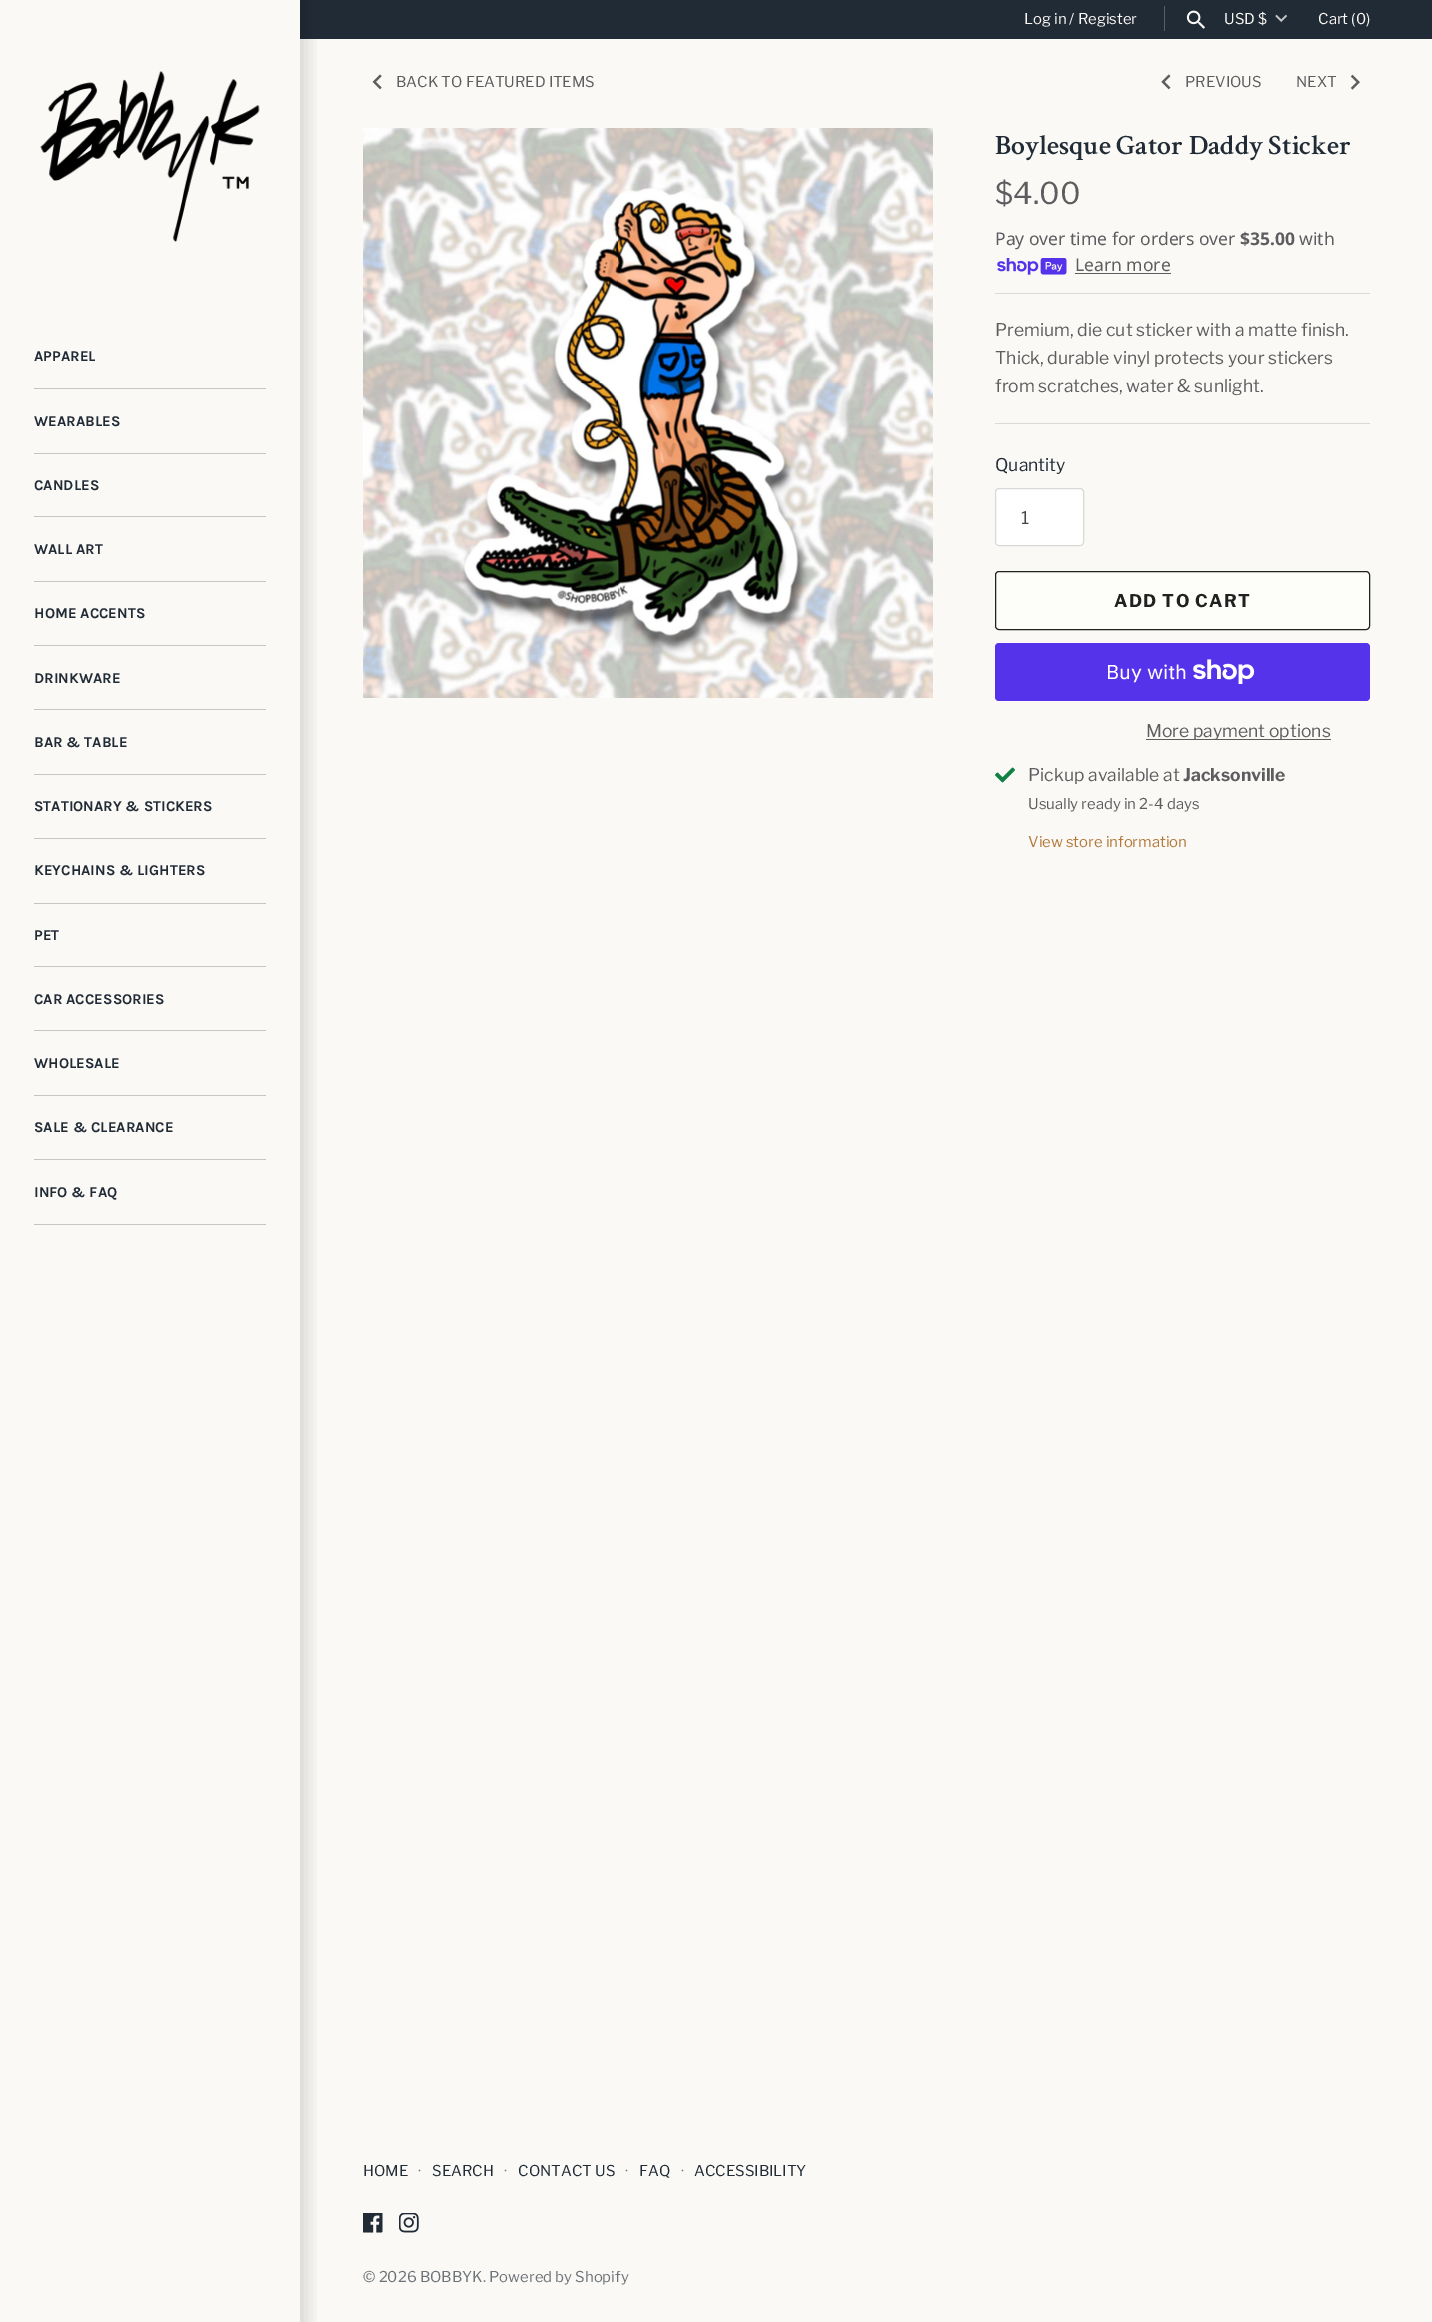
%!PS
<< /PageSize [1432 2322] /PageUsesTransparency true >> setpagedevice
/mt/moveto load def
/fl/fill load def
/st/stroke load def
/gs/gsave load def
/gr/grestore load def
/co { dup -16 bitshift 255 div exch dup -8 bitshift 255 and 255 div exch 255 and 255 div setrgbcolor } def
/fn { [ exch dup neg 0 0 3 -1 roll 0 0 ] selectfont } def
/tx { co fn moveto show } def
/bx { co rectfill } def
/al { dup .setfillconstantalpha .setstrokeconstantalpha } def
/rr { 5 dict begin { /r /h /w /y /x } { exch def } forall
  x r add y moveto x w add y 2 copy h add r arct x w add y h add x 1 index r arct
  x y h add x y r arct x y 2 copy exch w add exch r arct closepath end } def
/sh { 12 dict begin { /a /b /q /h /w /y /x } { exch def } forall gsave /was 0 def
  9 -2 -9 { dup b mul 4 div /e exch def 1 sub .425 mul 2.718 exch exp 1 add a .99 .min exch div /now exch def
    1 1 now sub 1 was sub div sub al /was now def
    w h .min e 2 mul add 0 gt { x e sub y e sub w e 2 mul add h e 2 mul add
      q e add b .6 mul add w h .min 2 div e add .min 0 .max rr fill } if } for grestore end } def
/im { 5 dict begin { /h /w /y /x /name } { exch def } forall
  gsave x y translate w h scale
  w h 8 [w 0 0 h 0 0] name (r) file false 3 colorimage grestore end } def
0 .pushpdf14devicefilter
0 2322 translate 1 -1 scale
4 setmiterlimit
0 0 1432 2322 16#FAF9F5 bx
300 0 1132 39 16#212B36 bx
1164 6 1 25 16#575F66 bx
(media/1.raw) 1186 10 19 19 im
(media/2.raw) 1275 14 13 8 im
gs
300 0 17 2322 rectclip
16#000000 co
-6 -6 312 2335 0 9.5 .15 sh
gr
(media/3.raw) 40 71 220 171 im
34 388 232 1 16#C4C6C5 bx
34 453 232 1 16#C4C6C5 bx
34 516 232 1 16#C4C6C5 bx
34 581 232 1 16#C4C6C5 bx
34 645 232 1 16#C4C6C5 bx
34 709 232 1 16#C4C6C5 bx
34 774 232 1 16#C4C6C5 bx
34 838 232 1 16#C4C6C5 bx
34 903 232 1 16#C4C6C5 bx
34 966 232 1 16#C4C6C5 bx
34 1030 232 1 16#C4C6C5 bx
34 1095 232 1 16#C4C6C5 bx
34 1159 232 1 16#C4C6C5 bx
34 1224 232 1 16#C4C6C5 bx
(media/4.raw) 372 74 10 16 im
(media/5.raw) 1161 74 10 16 im
(media/6.raw) 1350 74 10 16 im
(media/7.raw) 363 128 570 570 im
(media/8.raw) 997 258 70 17 im
1075 273 96 1 16#5D5D60 bx
995 293 375 1 16#DBDAD7 bx
995 423 375 1 16#DBDAD7 bx
16#FFFFFF co
995 488 89 58 4 rr fl
0.15 al
16#000000 co
995.5 488.5 88 57 3.5 rr st
1 al
16#FDFDF9 co
995.5 571.5 374 58 3.5 rr gs fl gr
16#212121 co
st
16#5433EB co
995 643 375 58 4 rr fl
(media/9.raw) 1193 659 62 25 im
1146 739 185 1 16#5D5D60 bx
(media/10.raw) 995 767 20 16 im
(media/11.raw) 363 2213 20 20 im
(media/12.raw) 399 2213 20 20 im
(Log in / Register) 1024 24 /LibreFranklin-Regular 14.9 16#FAF9F5 tx
(USD $) 1224 24 /LibreFranklin-Regular 14.9 16#FAF9F5 tx
(Cart \(0\)) 1318 24 /LibreFranklin-Regular 14.9 16#FAF9F5 tx
(APPAREL) 34 361 /Karla-Bold 14.9 16#212B36 tx
(WEARABLES) 34 426 /Karla-Bold 14.9 16#212B36 tx
(CANDLES) 34 490 /Karla-Bold 14.9 16#212B36 tx
(WALL ART) 34 554 /Karla-Bold 14.9 16#212B36 tx
(HOME ACCENTS) 34 618 /Karla-Bold 14.9 16#212B36 tx
(DRINKWARE) 34 683 /Karla-Bold 14.9 16#212B36 tx
(BAR & TABLE) 34 747 /Karla-Bold 14.9 16#212B36 tx
(STATIONARY & STICKERS) 34 811 /Karla-Bold 14.9 16#212B36 tx
(KEYCHAINS & LIGHTERS) 34 875 /Karla-Bold 14.9 16#212B36 tx
(PET) 34 940 /Karla-Bold 14.9 16#212B36 tx
(CAR ACCESSORIES) 34 1004 /Karla-Bold 14.9 16#212B36 tx
(WHOLESALE) 34 1068 /Karla-Bold 14.9 16#212B36 tx
(SALE & CLEARANCE) 34 1132 /Karla-Bold 14.9 16#212B36 tx
(INFO & FAQ) 34 1197 /Karla-Bold 14.9 16#212B36 tx
(BACK TO FEATURED ITEMS) 396 87 /LibreFranklin-Regular 14.9 16#5D5D60 tx
(PREVIOUS) 1185 87 /LibreFranklin-Regular 14.9 16#5D5D60 tx
(NEXT) 1296 87 /LibreFranklin-Regular 14.9 16#5D5D60 tx
(Boylesque Gator Daddy Sticker) 995 154 /CrimsonText-SemiBold 28 16#212B36 tx
($4.00) 995 204 /LibreFranklin-Regular 30 16#5D5D60 tx
(Pay over time for orders over) 995 245 /NotoSans-Regular 17.5 16#5D5D60 tx
($35.00) 1240 245 /NotoSans-Bold 17.5 16#5D5D60 tx
(with) 1299 245 /NotoSans-Regular 17.5 16#5D5D60 tx
(Learn more) 1075 271 /NotoSans-Regular 17.5 16#5D5D60 tx
(Premium, die cut sticker with a matte finish.) 995 336 /LibreFranklin-Regular 17.5 16#5D5D60 tx
(Thick, durable vinyl protects your stickers) 995 364 /LibreFranklin-Regular 17.5 16#5D5D60 tx
(from scratches, water & sunlight.) 995 392 /LibreFranklin-Regular 17.5 16#5D5D60 tx
(Quantity) 995 471 /LibreFranklin-Regular 17.5 16#212B36 tx
(1) 1021 524 /LibreFranklin-Regular 17.5 16#444444 tx
/LibreFranklin-Bold 17.5 fn
16#212121 co
1114 607 mt 1.25 0 (ADD TO CART) ashow
(Buy with) 1106 679 /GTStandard-Regular 20 16#FFFFFF tx
(More payment options) 1146 737 /LibreFranklin-Regular 17.5 16#5D5D60 tx
(Pickup available at) 1028 781 /LibreFranklin-Regular 17.5 16#5D5D60 tx
(Jacksonville) 1183 781 /LibreFranklin-Bold 17.5 16#5D5D60 tx
(Usually ready in 2-4 days) 1028 809 /LibreFranklin-Regular 14.9 16#5D5D60 tx
(View store information) 1028 847 /LibreFranklin-Regular 14.9 16#B3793B tx
(HOME) 363 2176 /LibreFranklin-Regular 14.9 16#212B36 tx
(·) 418 2176 /LibreFranklin-Regular 14.9 16#6D7379 tx
(SEARCH) 432 2176 /LibreFranklin-Regular 14.9 16#212B36 tx
(·) 504 2176 /LibreFranklin-Regular 14.9 16#6D7379 tx
(CONTACT US) 518 2176 /LibreFranklin-Regular 14.9 16#212B36 tx
(·) 625 2176 /LibreFranklin-Regular 14.9 16#6D7379 tx
(FAQ) 639 2176 /LibreFranklin-Regular 14.9 16#212B36 tx
(·) 681 2176 /LibreFranklin-Regular 14.9 16#6D7379 tx
(ACCESSIBILITY) 694 2176 /LibreFranklin-Regular 14.9 16#212B36 tx
(© 2026 BOBBYK. Powered by Shopify) 363 2282 /LibreFranklin-Regular 14.9 16#6D7379 tx
.poppdf14devicefilter showpage
